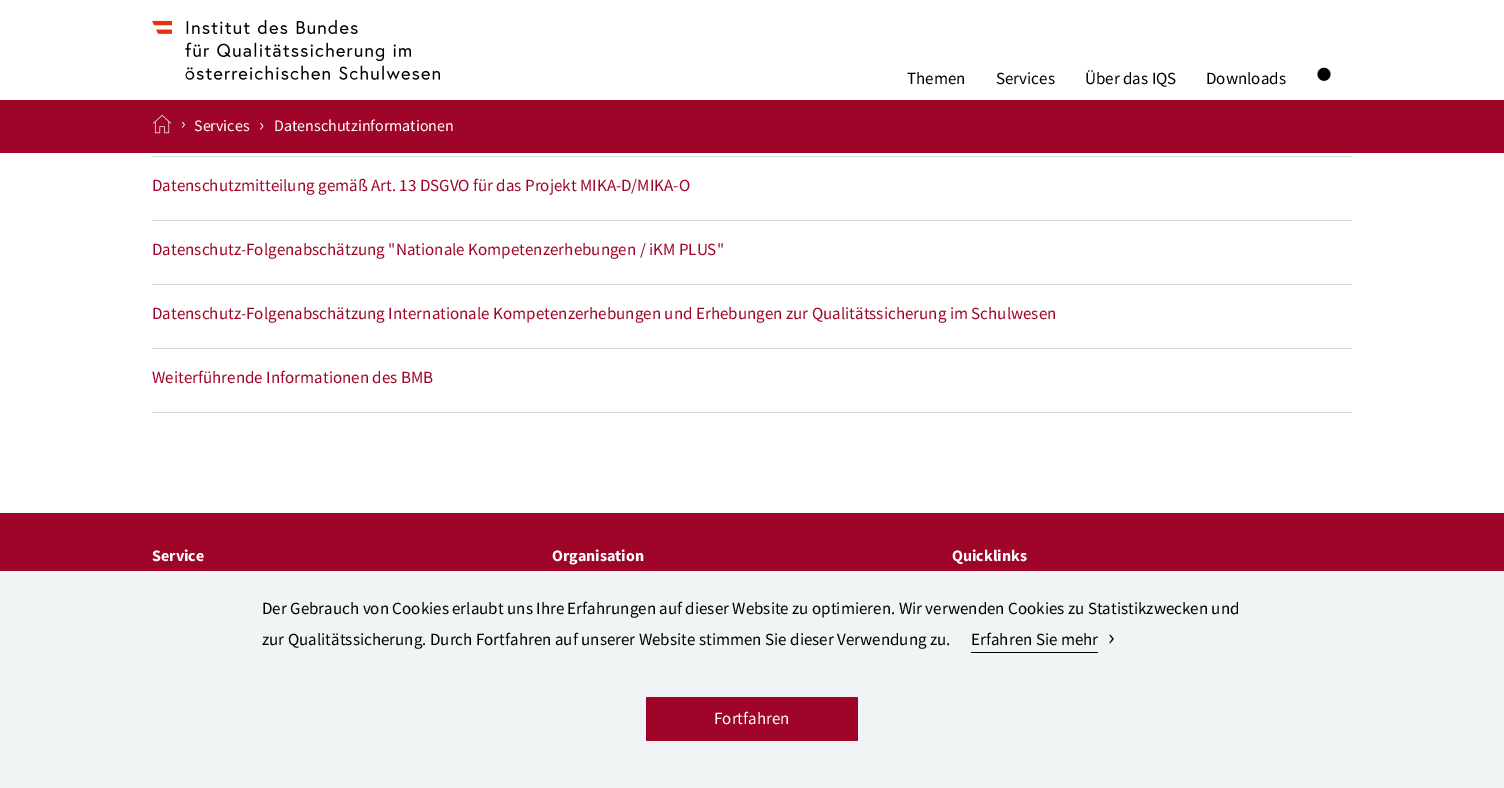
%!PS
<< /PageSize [1504 788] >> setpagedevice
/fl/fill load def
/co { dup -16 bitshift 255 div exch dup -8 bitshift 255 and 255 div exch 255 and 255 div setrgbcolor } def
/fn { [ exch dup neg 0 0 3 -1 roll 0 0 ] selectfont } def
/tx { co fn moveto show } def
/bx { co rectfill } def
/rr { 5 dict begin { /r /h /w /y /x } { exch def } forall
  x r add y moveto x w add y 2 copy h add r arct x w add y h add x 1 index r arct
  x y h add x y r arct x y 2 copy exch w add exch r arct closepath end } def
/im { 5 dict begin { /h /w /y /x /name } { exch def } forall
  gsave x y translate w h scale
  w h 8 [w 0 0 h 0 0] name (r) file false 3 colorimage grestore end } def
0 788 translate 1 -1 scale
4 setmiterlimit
0 0 1504 788 16#FFFFFF bx
(media/1.raw) 152 20 288 60 im
(media/2.raw) 1317 67 14 14 im
0 100 1504 53 16#9E0529 bx
(media/3.raw) 153 115 19 19 im
152 156 1200 1 16#D1DBDE bx
152 220 1200 1 16#D1DBDE bx
152 284 1200 1 16#D1DBDE bx
152 348 1200 1 16#D1DBDE bx
152 412 1200 1 16#D1DBDE bx
0 513 1504 58 16#9E0529 bx
0 571 1504 217 16#F0F4F5 bx
971 652 127 1 16#000000 bx
16#9E0529 co
646 697 212 44 1 rr fl
(Themen) 907 84 /SourceSansPro-Regular 17 16#000000 tx
(Services) 996 84 /SourceSansPro-Regular 17 16#000000 tx
(Über das IQS) 1085 84 /SourceSansPro-Regular 17 16#000000 tx
(Downloads) 1206 84 /SourceSansPro-Regular 17 16#000000 tx
(›) 181 129 /SourceSansPro-Regular 17 16#FFFFFF tx
(Services) 194 131 /SourceSansPro-Regular 16 16#FFFFFF tx
(›) 259 131 /SourceSansPro-Regular 19 16#FFFFFF tx
(Datenschutzinformationen) 274 131 /SourceSansPro-Regular 16 16#FFFFFF tx
(Datenschutzmitteilung gemäß Art. 13 DSGVO für das Projekt MIKA-D/MIKA-O) 152 191 /SourceSansPro-Regular 17 16#9E0529 tx
(Datenschutz-Folgenabschätzung "Nationale Kompetenzerhebungen / iKM PLUS") 152 255 /SourceSansPro-Regular 17 16#9E0529 tx
(Datenschutz-Folgenabschätzung Internationale Kompetenzerhebungen und Erhebungen zur Qualitätssicherung im Schulwesen) 152 319 /SourceSansPro-Regular 17 16#9E0529 tx
(Weiterführende Informationen des BMB) 152 383 /SourceSansPro-Regular 17 16#9E0529 tx
(Service) 152 561 /SourceSansPro-Bold 16 16#FFFFFF tx
(Organisation) 552 561 /SourceSansPro-Bold 16 16#FFFFFF tx
(Quicklinks) 952 561 /SourceSansPro-Bold 16 16#FFFFFF tx
(Der Gebrauch von Cookies erlaubt uns Ihre Erfahrungen auf dieser Website zu optimieren. Wir verwenden Cookies zu Statistikzwecken und) 262 614 /SourceSansPro-Regular 17 16#000000 tx
(zur Qualitätssicherung. Durch Fortfahren auf unserer Website stimmen Sie dieser Verwendung zu.) 262 645 /SourceSansPro-Regular 17 16#000000 tx
(Erfahren Sie mehr) 971 645 /SourceSansPro-Regular 17 16#000000 tx
(›) 1108 645 /SourceSansPro-Regular 24 16#000000 tx
(Fortfahren) 714 724 /SourceSansPro-Regular 17 16#FFFFFF tx
showpage
